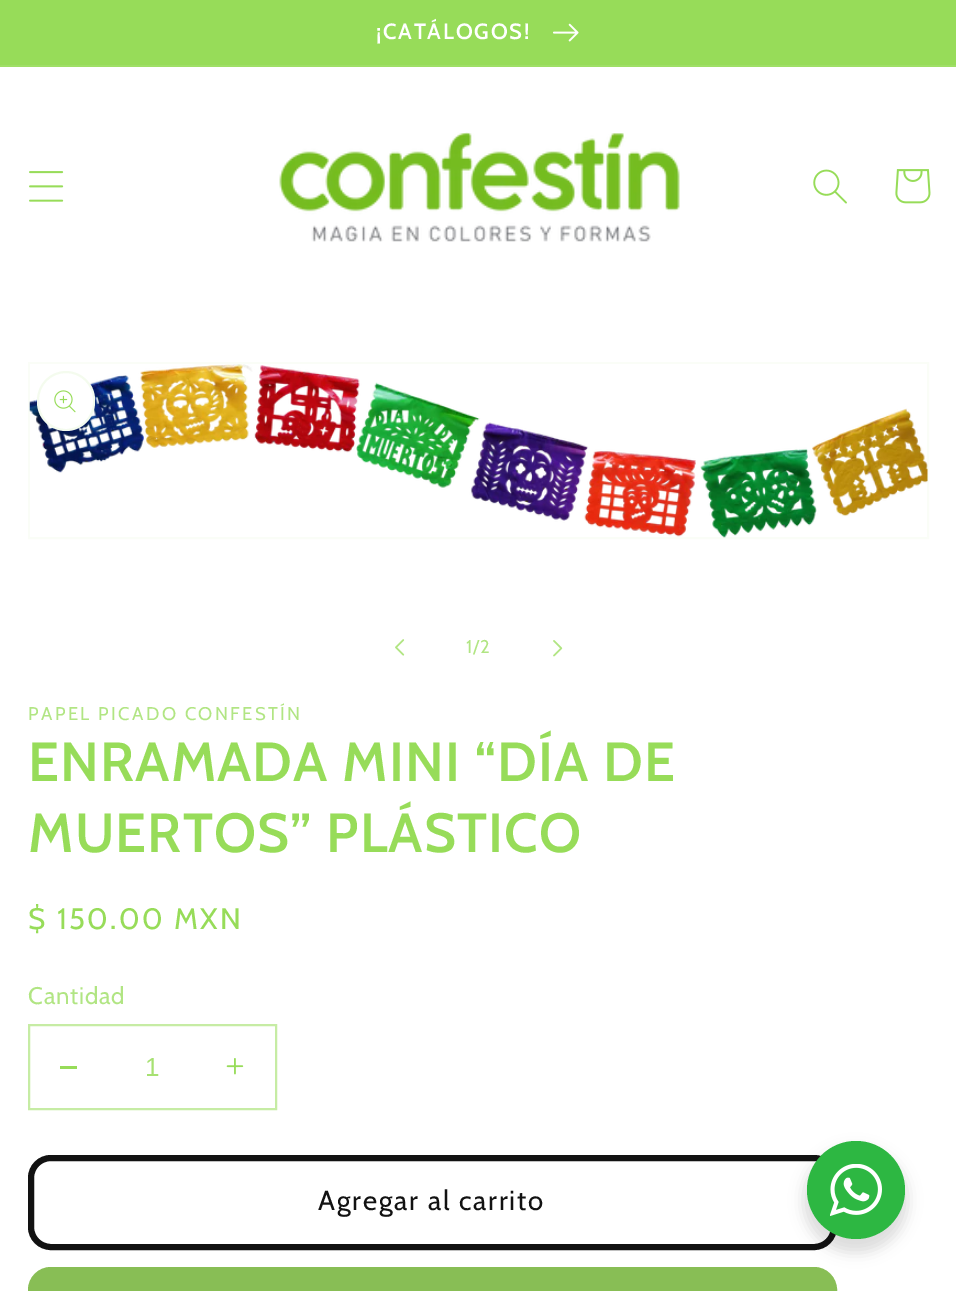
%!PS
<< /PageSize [956 1291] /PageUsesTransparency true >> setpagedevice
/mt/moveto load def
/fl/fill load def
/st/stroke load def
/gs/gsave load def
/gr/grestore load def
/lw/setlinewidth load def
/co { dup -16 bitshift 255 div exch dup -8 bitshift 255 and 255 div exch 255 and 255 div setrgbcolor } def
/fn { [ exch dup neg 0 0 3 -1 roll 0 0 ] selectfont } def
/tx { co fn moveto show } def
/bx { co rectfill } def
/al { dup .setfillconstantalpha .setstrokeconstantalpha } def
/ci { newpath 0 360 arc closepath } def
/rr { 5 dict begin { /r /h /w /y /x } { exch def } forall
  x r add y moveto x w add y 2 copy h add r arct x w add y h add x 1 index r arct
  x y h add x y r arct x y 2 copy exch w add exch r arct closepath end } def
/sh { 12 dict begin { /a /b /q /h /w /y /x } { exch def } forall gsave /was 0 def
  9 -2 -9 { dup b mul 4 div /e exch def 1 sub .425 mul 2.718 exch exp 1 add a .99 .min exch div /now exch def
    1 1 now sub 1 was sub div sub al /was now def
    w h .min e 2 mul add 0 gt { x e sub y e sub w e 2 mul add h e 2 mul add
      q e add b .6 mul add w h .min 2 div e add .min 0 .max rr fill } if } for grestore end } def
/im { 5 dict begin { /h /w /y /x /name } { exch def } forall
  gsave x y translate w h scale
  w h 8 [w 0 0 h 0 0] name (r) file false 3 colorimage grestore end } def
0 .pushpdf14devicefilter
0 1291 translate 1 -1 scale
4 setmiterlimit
0 0 956 1291 16#FFFFFF bx
0 0 956 65 16#97DC59 bx
0 65 956 2 16#9FDF66 bx
(media/1.raw) 553 23 26 19 im
(media/2.raw) 29 171 35 31 im
(media/3.raw) 279 132 401 110 im
(media/4.raw) 813 169 34 35 im
(media/5.raw) 895 169 36 35 im
16#FAFDF7 co
2 lw
29 363 899 175 rectstroke
(media/6.raw) 29 364 899 174 im
16#FFFFFF co
37 371 58 60 29 rr fl
0.1 al
16#97DC59 co
38 372 56 58 28 rr st
1 al
(media/7.raw) 54 390 22 23 im
(media/8.raw) 395 639 10 17 im
(media/9.raw) 553 640 10 17 im
60 1066 17 3 16#97DC59 bx
(media/10.raw) 226 1058 18 17 im
16#C6ECA4 co
29 1025 247 84 rectstroke
16#121212 co
6 lw
31 1158 803 89 20 rr st
16#88BE55 co
30.5 1269.5 804 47 20.5 rr gs fl gr
5 lw
st
16#000000 co
803 1148 105 105 52.5 7 .14 sh
16#2DB742 co
856 1190 49 ci fl
(media/11.raw) 830 1164 52 52 im
/Cabin-SemiBold 22 fn
16#FFFFFF co
376 39 mt 1.8 0 (¡CATÁLOGOS!) ashow
/Cabin-Regular 18.4 fn
16#B1E583 co
466 653 mt 1 0 (1/2) ashow
28 720 mt 2.4 0 (PAPEL PICADO CONFESTÍN) ashow
/Cabin-SemiBold 55.1 fn
16#97DC59 co
28 781 mt 1.1 0 (ENRAMADA MINI “DÍA DE) ashow
28 852 mt 1.1 0 (MUERTOS” PLÁSTICO) ashow
/Cabin-Regular 29.5 fn
28 929 mt 2.4 0 ($ 150.00 MXN) ashow
/Cabin-Regular 24 fn
16#B1E583 co
28 1004 mt .75 0 (Cantidad) ashow
(1) 145 1076 /LiberationSans-Regular 26 16#A7E172 tx
/Cabin-Regular 27.5 fn
16#121212 co
318 1210 mt 1.8 0 (Agregar al carrito) ashow
.poppdf14devicefilter showpage
